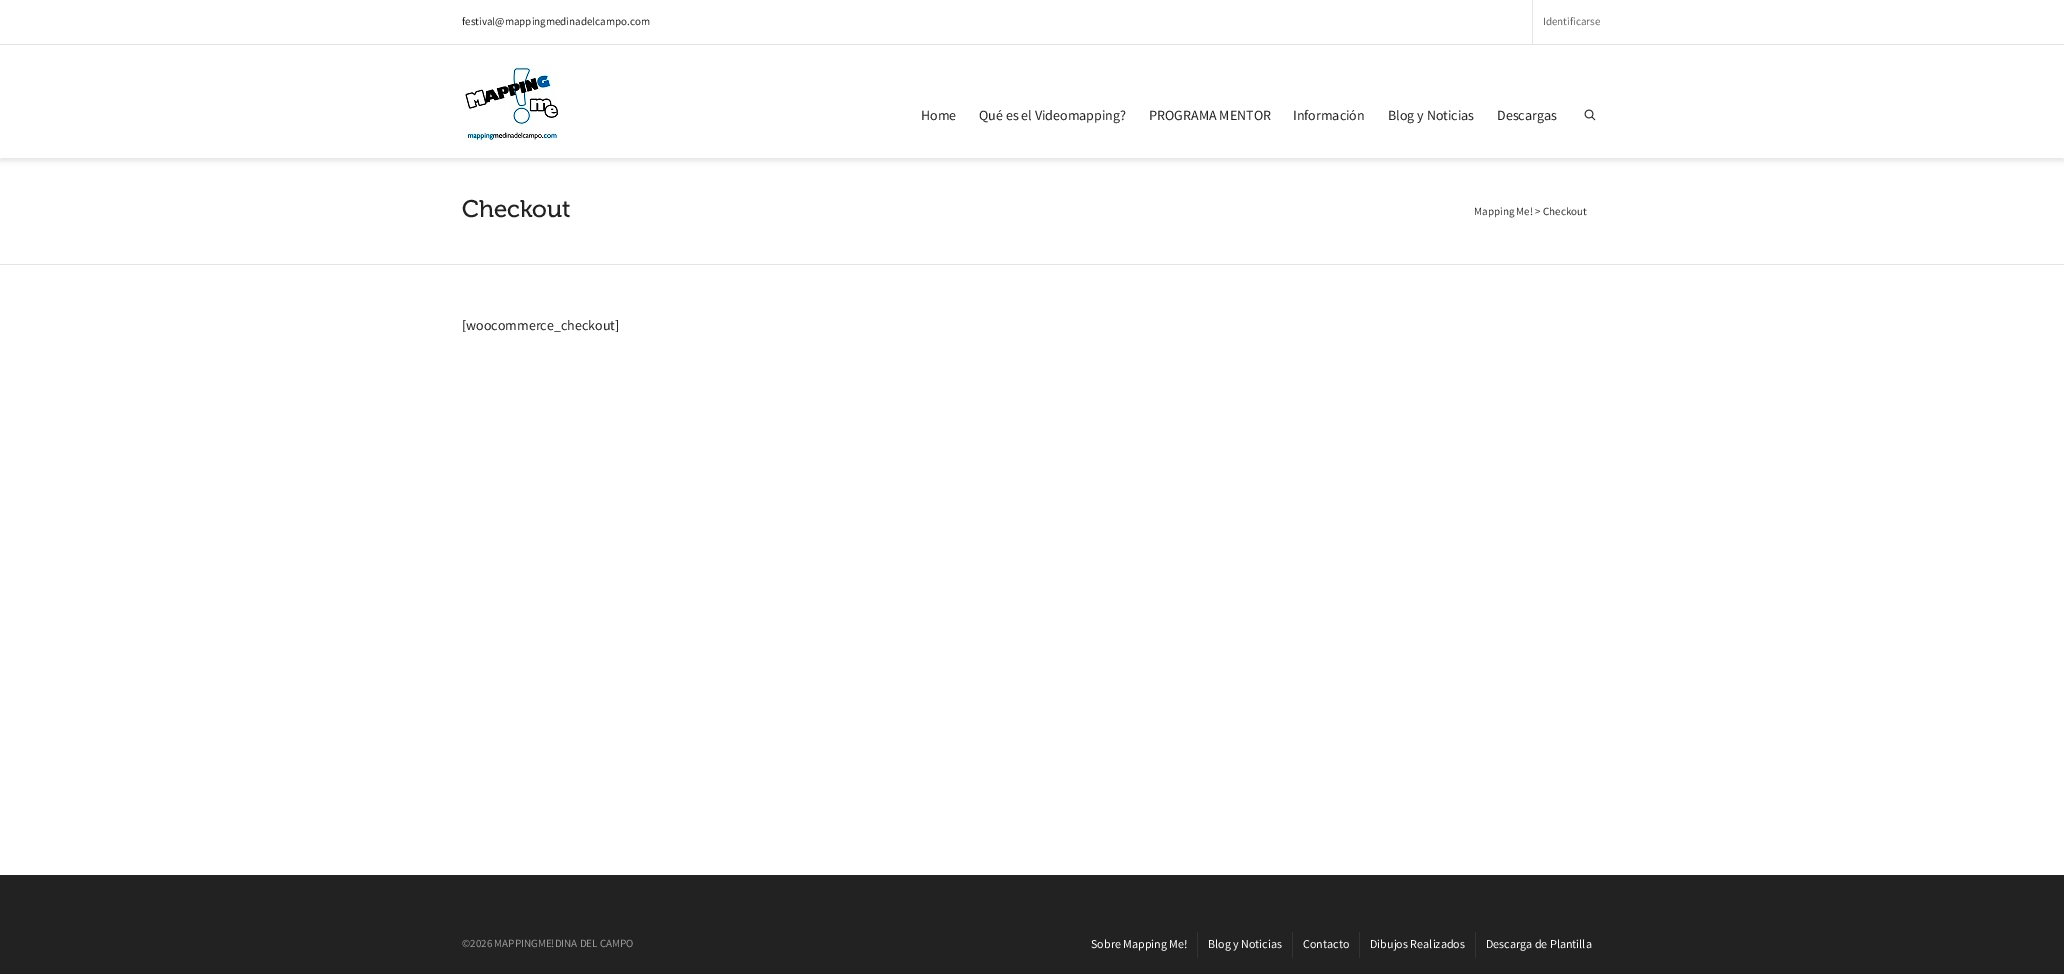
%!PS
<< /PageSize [2064 974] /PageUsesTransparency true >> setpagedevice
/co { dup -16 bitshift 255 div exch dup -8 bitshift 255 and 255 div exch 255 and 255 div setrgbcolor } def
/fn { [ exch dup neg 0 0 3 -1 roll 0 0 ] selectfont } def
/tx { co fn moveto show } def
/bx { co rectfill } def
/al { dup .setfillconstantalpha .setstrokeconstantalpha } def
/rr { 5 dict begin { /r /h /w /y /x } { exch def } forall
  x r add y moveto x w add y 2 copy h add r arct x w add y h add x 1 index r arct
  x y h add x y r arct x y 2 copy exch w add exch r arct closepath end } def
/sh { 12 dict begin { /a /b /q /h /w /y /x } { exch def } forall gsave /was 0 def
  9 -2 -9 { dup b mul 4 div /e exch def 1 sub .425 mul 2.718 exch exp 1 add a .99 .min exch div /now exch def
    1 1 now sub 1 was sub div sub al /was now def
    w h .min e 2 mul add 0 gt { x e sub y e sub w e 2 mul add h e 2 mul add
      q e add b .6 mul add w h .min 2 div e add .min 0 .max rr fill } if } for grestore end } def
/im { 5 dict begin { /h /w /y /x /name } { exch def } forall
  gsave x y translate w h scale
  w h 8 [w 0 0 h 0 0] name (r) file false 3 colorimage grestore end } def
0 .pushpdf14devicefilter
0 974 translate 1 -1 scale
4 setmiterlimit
0 0 2064 974 16#222222 bx
0 158 2064 717 16#FFFFFF bx
16#000000 co
0 3 2064 158 0 2.5 .1 sh
0 0 2064 158 16#FFFFFF bx
0 44 2064 1 16#E4E4E4 bx
1532 0 1 44 16#E4E4E4 bx
(media/1.raw) 462 65 97 78 im
(media/2.raw) 1584 109 12 12 im
0 264 2064 1 16#E4E4E4 bx
1197 932 1 26 16#333333 bx
1292 932 1 26 16#333333 bx
1359 932 1 26 16#333333 bx
1475 932 1 26 16#333333 bx
(festival@mappingmedinadelcampo.com) 462 25 /SourceSansPro-Regular 11 16#222222 tx
(Identificarse) 1543 25 /SourceSansPro-Regular 11 16#666666 tx
(Home) 921 120 /SourceSansPro-Regular 14 16#222222 tx
(Qué es el Videomapping?) 979 120 /SourceSansPro-Regular 14 16#222222 tx
(PROGRAMA MENTOR) 1149 120 /SourceSansPro-Regular 14 16#222222 tx
(Información) 1293 120 /SourceSansPro-Regular 14 16#222222 tx
(Blog y Noticias) 1388 120 /SourceSansPro-Regular 14 16#222222 tx
(Descargas) 1497 120 /SourceSansPro-Regular 14 16#222222 tx
(Checkout) 462 217 /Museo-Regular 24 16#222222 tx
(Mapping Me! > Checkout) 1474 215 /SourceSansPro-Regular 11 16#333333 tx
([woocommerce_checkout]) 462 330 /SourceSansPro-Regular 14 16#222222 tx
(©2026 MAPPINGME!DINA DEL CAMPO) 462 947 /SourceSansPro-Regular 11 16#999999 tx
(Sobre Mapping Me!) 1091 948 /SourceSansPro-Regular 12 16#FFFFFF tx
(Blog y Noticias) 1208 948 /SourceSansPro-Regular 12 16#FFFFFF tx
(Contacto) 1303 948 /SourceSansPro-Regular 12 16#FFFFFF tx
(Dibujos Realizados) 1370 948 /SourceSansPro-Regular 12 16#FFFFFF tx
(Descarga de Plantilla) 1486 948 /SourceSansPro-Regular 12 16#FFFFFF tx
.poppdf14devicefilter showpage
